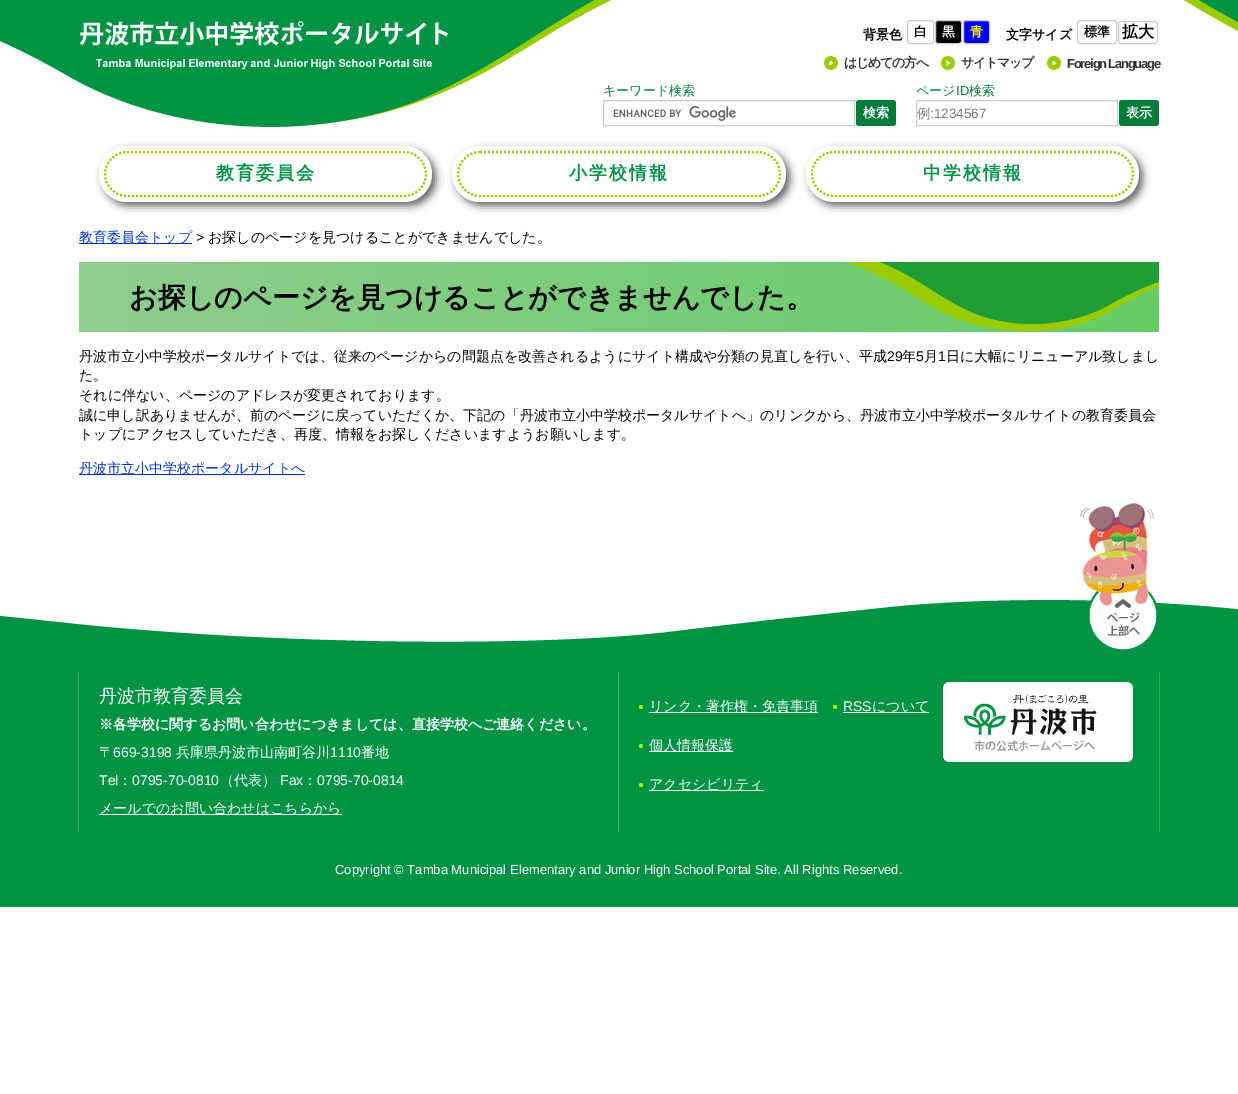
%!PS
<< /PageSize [1238 1094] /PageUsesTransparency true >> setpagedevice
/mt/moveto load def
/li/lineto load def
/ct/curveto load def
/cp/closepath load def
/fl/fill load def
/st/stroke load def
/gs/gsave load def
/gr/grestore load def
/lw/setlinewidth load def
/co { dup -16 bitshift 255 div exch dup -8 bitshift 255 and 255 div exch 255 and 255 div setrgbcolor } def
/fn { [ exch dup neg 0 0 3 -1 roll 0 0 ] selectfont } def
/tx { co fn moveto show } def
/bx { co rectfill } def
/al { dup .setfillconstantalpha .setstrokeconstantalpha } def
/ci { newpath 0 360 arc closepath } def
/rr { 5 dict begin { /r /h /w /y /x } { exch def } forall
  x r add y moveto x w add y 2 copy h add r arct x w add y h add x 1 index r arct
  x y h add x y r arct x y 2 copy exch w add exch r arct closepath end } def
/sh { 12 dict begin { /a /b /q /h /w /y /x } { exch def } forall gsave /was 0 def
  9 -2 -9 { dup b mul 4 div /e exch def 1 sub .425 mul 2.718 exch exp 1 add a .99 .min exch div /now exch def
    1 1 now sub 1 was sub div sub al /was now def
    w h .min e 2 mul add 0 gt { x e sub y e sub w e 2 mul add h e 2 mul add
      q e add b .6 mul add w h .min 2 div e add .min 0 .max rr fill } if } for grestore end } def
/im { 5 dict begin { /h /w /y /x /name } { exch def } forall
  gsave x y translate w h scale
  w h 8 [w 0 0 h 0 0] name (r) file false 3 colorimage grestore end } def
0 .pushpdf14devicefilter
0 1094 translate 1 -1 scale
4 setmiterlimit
0 0 1238 1094 16#FFFFFF bx
(media/1.raw) 0 0 1238 127 im
(media/2.raw) 79 21 369 49 im
16#CCCCCC co
907.5 20.5 26 23 2.5 rr st
16#000000 co
935.5 20.5 26 23 2.5 rr gs fl gr
16#CCCCCC co
st
16#0000FF co
963.5 20.5 26 23 2.5 rr gs fl gr
16#CCCCCC co
st
1077.5 20.5 39 23 2.5 rr st
1118.5 21.5 39 22 2.5 rr st
(media/3.raw) 824 56 14 14 im
(media/3.raw) 941 56 14 14 im
(media/3.raw) 1047 56 14 14 im
(media/4.raw) 613 106 123 15 im
603.5 100.5 251 25 rectstroke
16#007D39 co
856 100 40 26 3 rr fl
16#CCCCCC co
916.5 100.5 201 25 rectstroke
16#007D39 co
1119 100 40 26 3 rr fl
16#666666 co
103 150 333 56 28 4 1 sh
16#FFFFFF co
99 146 333 56 28 rr fl
16#99CC00 co
2 lw
[2 2] 0 setdash
127 152 mt 404 152 li 416 152 426 162 426 174 ct 426 186 416 196 404 196 ct 127 196 li 115 196 105 186 105 174 ct 105 162 115 152 127 152 ct cp st
16#666666 co
456 150 334 56 28 4 1 sh
16#FFFFFF co
452 146 334 56 28 rr fl
16#99CC00 co
480 152 mt 758 152 li 770 152 780 162 780 174 ct 780 186 770 196 758 196 ct 480 196 li 468 196 458 186 458 174 ct 458 162 468 152 480 152 ct cp st
16#666666 co
810 150 333 56 28 4 1 sh
16#FFFFFF co
806 146 333 56 28 rr fl
16#99CC00 co
834 152 mt 1111 152 li 1123 152 1133 162 1133 174 ct 1133 186 1123 196 1111 196 ct 834 196 li 822 196 812 186 812 174 ct 812 162 822 152 834 152 ct cp st
79 243 113 1 16#0033CC bx
gs 79 262 mt 1159 262 li 1159 332 li 79 332 li cp clip newpath
<< /ShadingType 2 /ColorSpace /DeviceRGB /Coords [79 297 1159 297] /Extend [true true] /Function << /FunctionType 2 /Domain [0 1] /C0 [.557 .8 .557] /C1 [.4 .8 .4] /N 1 >> >> shfill gr
(media/5.raw) 846 262 313 69 im
79 474 226 1 16#0033CC bx
0 642 1238 265 16#009343 bx
(media/6.raw) 0 592 1238 50 im
1159 672 1 160 16#33A969 bx
78 672 1 160 16#33A969 bx
(media/7.raw) 1080 503 77 147 im
618 672 1 160 16#33A969 bx
99 814 243 1 16#FFFFFF bx
16#99FF00 co
641 707 2 ci fl
649 712 169 1 16#FFFFFF bx
16#99FF00 co
835 707 2 ci fl
843 712 86 1 16#FFFFFF bx
16#99FF00 co
641 746 2 ci fl
649 751 84 1 16#FFFFFF bx
16#99FF00 co
641 785 2 ci fl
649 790 115 1 16#FFFFFF bx
(media/8.raw) 943 682 190 80 im
(背景色) 863 39 /WenQuanYiZenHei-Bold 13 16#000000 tx
(白) 914 36 /WenQuanYiZenHei-Bold 13 16#000000 tx
(黒) 942 36 /WenQuanYiZenHei-Bold 13 16#FFFFFF tx
(青) 970 36 /WenQuanYiZenHei-Bold 13 16#FFFF00 tx
(文字サイズ) 1006 39 /WenQuanYiZenHei-Bold 13 16#000000 tx
(標準) 1084 36 /WenQuanYiZenHei-Bold 13 16#000000 tx
(拡大) 1122 37 /WenQuanYiZenHei-Bold 16 16#000000 tx
/WenQuanYiZenHei-Bold 13 fn
16#333333 co
844 67 mt -1.25 0 (はじめての方へ) ashow
961 67 mt -1.25 0 (サイトマップ) ashow
/LiberationSans-Bold 13 fn
1067 68 mt -1.25 0 (Foreign Language) ashow
(キーワード検索) 603 95 /WenQuanYiZenHei-Medium 13 16#007D39 tx
(検索) 863 117 /WenQuanYiZenHei-Bold 13 16#FFFFFF tx
(ページ) 916 95 /WenQuanYiZenHei-Medium 13 16#007D39 tx
(ID) 956 95 /LiberationSans-Regular 13 16#007D39 tx
(検索) 969 95 /WenQuanYiZenHei-Medium 13 16#007D39 tx
(例) 917 118 /WenQuanYiZenHei-Medium 13.5 16#757575 tx
(:1234567) 930 118 /LiberationSans-Regular 13.5 16#757575 tx
(表示) 1126 117 /WenQuanYiZenHei-Bold 13 16#FFFFFF tx
/WenQuanYiZenHei-Bold 18 fn
16#009343 co
216 179 mt 2 0 (教育委員会) ashow
569 179 mt 2 0 (小学校情報) ashow
923 179 mt 2 0 (中学校情報) ashow
(教育委員会トップ) 79 242 /WenQuanYiZenHei-Medium 14 16#0033CC tx
(>) 196 242 /LiberationSans-Regular 14 16#000000 tx
(お探しのページを見つけることができませんでした。) 208 242 /WenQuanYiZenHei-Medium 14 16#000000 tx
(お探しのページを見つけることができませんでした。) 129 307 /WenQuanYiZenHei-Bold 28 16#000000 tx
(丹波市立小中学校ポータルサイトでは、従来のページからの問題点を改善されるようにサイト構成や分類の見直しを行い、平成) 79 361 /WenQuanYiZenHei-Medium 14 16#000000 tx
(29) 887 361 /LiberationSans-Regular 14 16#000000 tx
(年) 902 361 /WenQuanYiZenHei-Medium 14 16#000000 tx
(5) 916 361 /LiberationSans-Regular 14 16#000000 tx
(月) 924 361 /WenQuanYiZenHei-Medium 14 16#000000 tx
(1) 938 361 /LiberationSans-Regular 14 16#000000 tx
(日に大幅にリニューアル致しまし) 946 361 /WenQuanYiZenHei-Medium 14 16#000000 tx
(た。) 79 380 /WenQuanYiZenHei-Medium 14 16#000000 tx
(それに伴ない、ページのアドレスが変更されております。) 79 400 /WenQuanYiZenHei-Medium 14 16#000000 tx
(誠に申し訳ありませんが、前のページに戻っていただくか、下記の「丹波市立小中学校ポータルサイトへ」のリンクから、丹波市立小中学校ポータルサイトの教育委員会) 79 420 /WenQuanYiZenHei-Medium 14 16#000000 tx
(トップにアクセスしていただき、再度、情報をお探しくださいますようお願いします。) 79 439 /WenQuanYiZenHei-Medium 14 16#000000 tx
(丹波市立小中学校ポータルサイトへ) 79 473 /WenQuanYiZenHei-Medium 14 16#0033CC tx
(丹波市教育委員会) 99 702 /WenQuanYiZenHei-Medium 18 16#FFFFFF tx
(※各学校に関するお問い合わせにつきましては、直接学校へご連絡ください。) 99 729 /WenQuanYiZenHei-Bold 14 16#FFFFFF tx
(〒) 99 757 /WenQuanYiZenHei-Medium 14 16#FFFFFF tx
(669-3198) 113 757 /LiberationSans-Regular 14 16#FFFFFF tx
(兵庫県丹波市山南町谷川) 176 757 /WenQuanYiZenHei-Medium 14 16#FFFFFF tx
(1110) 330 757 /LiberationSans-Regular 14 16#FFFFFF tx
(番地) 361 757 /WenQuanYiZenHei-Medium 14 16#FFFFFF tx
(Tel) 99 785 /LiberationSans-Regular 14 16#FFFFFF tx
(：) 118 785 /WenQuanYiZenHei-Medium 14 16#FFFFFF tx
(0795-70-0810) 132 785 /LiberationSans-Regular 14 16#FFFFFF tx
(（代表）) 220 785 /WenQuanYiZenHei-Medium 14 16#FFFFFF tx
(Fax) 280 785 /LiberationSans-Regular 14 16#FFFFFF tx
(：) 303 785 /WenQuanYiZenHei-Medium 14 16#FFFFFF tx
(0795-70-0814) 317 785 /LiberationSans-Regular 14 16#FFFFFF tx
(メールでのお問い合わせはこちらから) 99 813 /WenQuanYiZenHei-Medium 14 16#FFFFFF tx
(リンク・著作権・免責事項) 649 711 /WenQuanYiZenHei-Medium 14 16#FFFFFF tx
(RSS) 843 711 /LiberationSans-Regular 14 16#FFFFFF tx
(について) 872 711 /WenQuanYiZenHei-Medium 14 16#FFFFFF tx
(個人情報保護) 649 750 /WenQuanYiZenHei-Medium 14 16#FFFFFF tx
(アクセシビリティ) 649 789 /WenQuanYiZenHei-Medium 14 16#FFFFFF tx
(Copyright © Tamba Municipal Elementary and Junior High School Portal Site. All Rights Reserved.) 335 874 /LiberationSans-Regular 13 16#FFFFFF tx
.poppdf14devicefilter showpage
